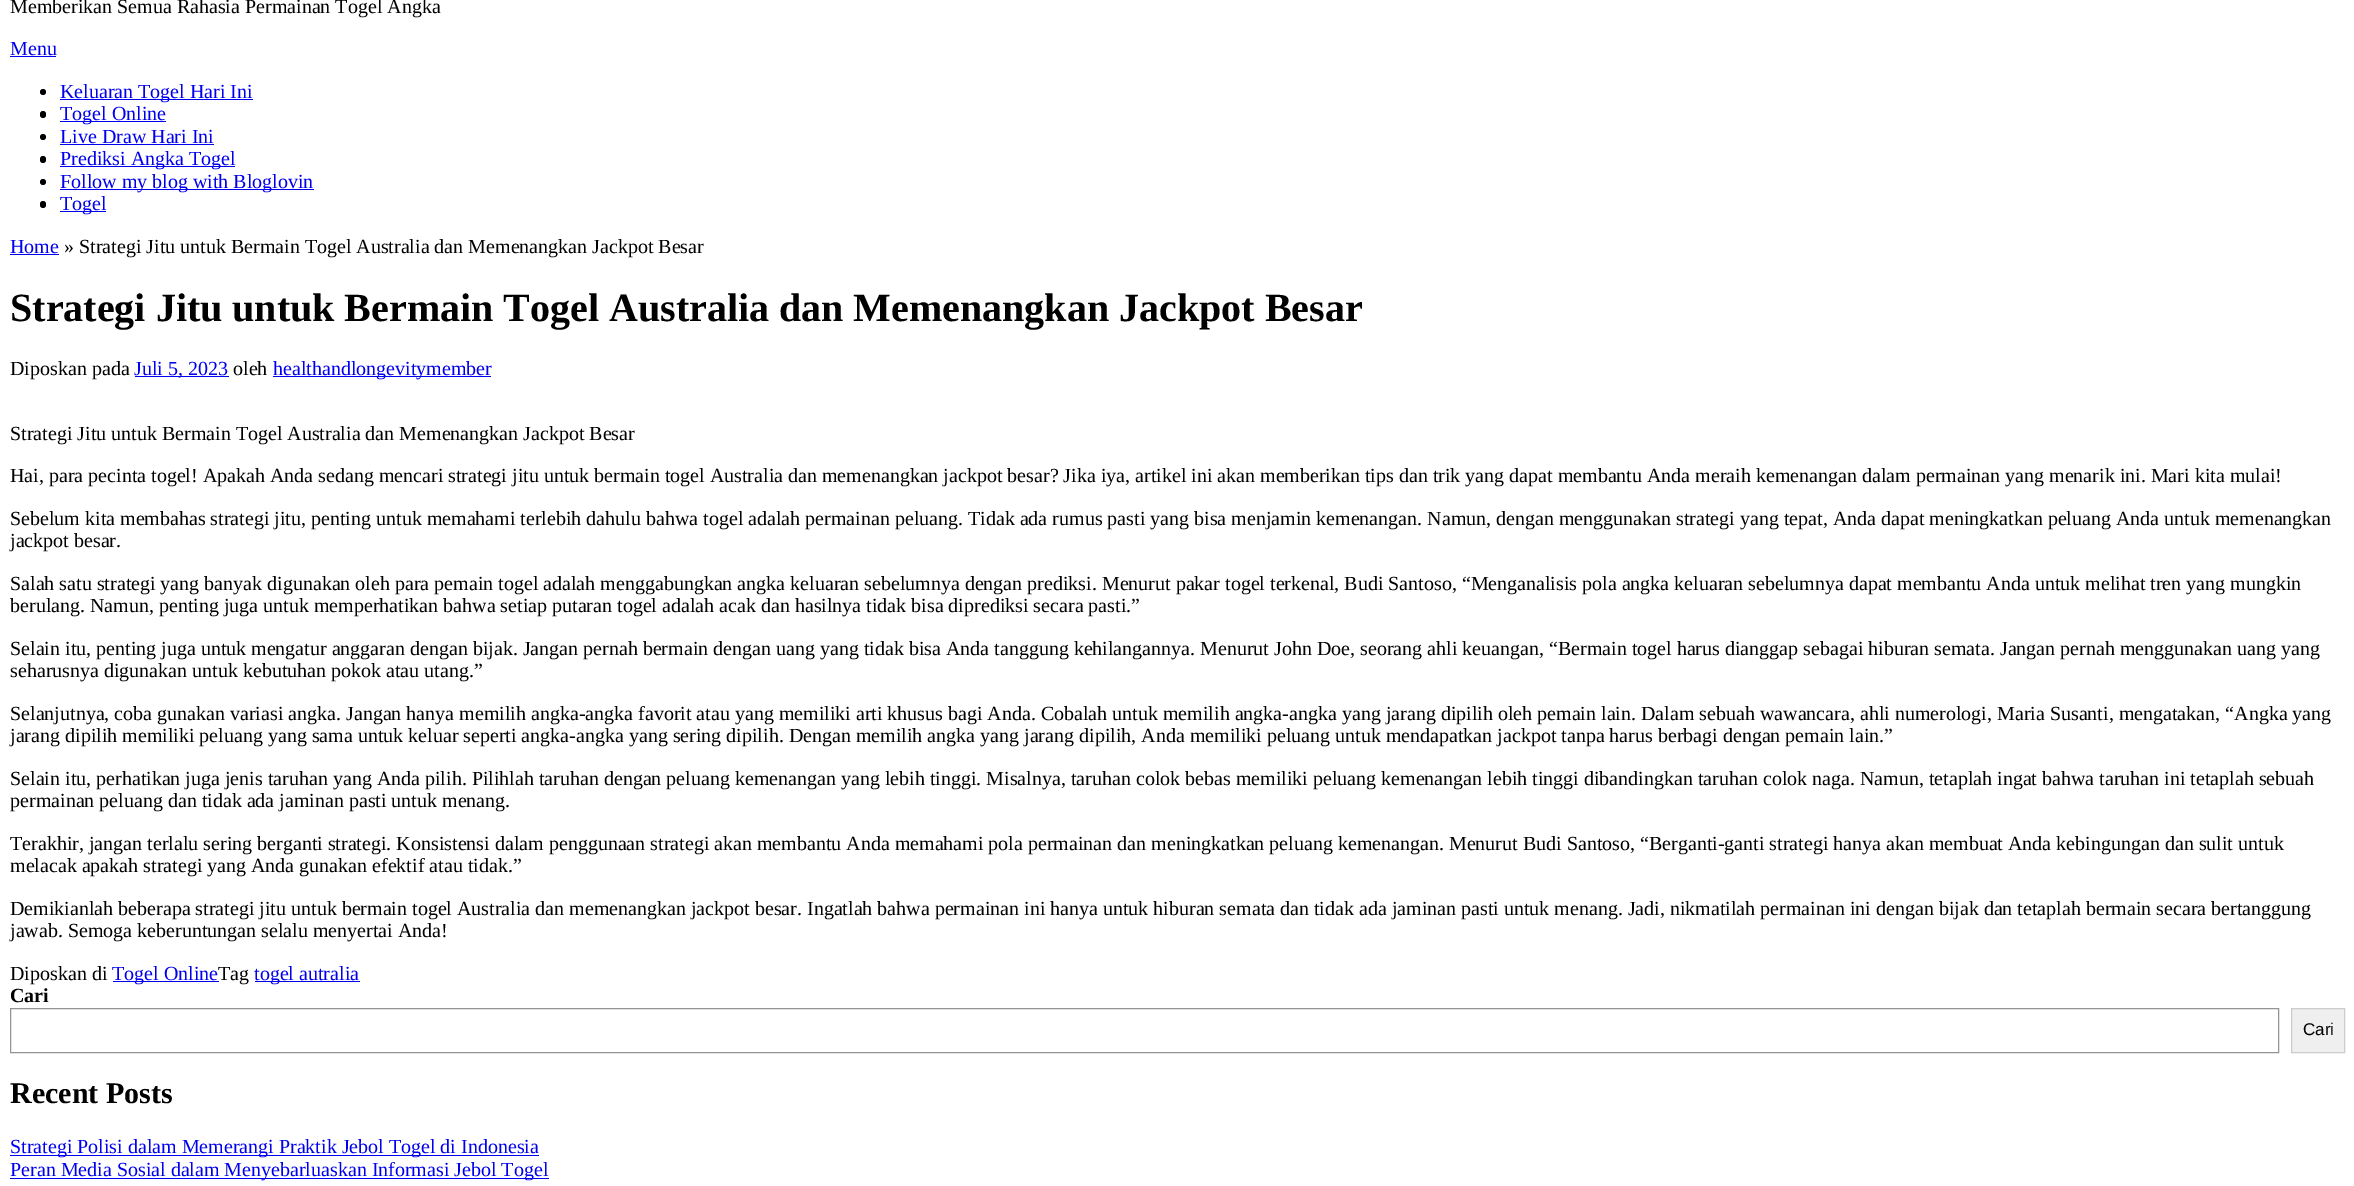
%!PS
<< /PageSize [2354 1186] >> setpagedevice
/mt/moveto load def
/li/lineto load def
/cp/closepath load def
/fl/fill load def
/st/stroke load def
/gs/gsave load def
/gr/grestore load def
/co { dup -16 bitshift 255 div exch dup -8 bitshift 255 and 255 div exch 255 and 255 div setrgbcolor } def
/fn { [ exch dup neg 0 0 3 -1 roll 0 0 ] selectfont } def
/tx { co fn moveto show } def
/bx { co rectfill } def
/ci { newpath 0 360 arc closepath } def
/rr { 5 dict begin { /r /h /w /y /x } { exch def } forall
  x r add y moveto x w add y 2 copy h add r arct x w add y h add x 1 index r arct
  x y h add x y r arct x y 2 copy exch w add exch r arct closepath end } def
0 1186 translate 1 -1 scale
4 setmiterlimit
0 0 2354 1186 16#FFFFFF bx
10 56 46 1 16#0000EE bx
16#000000 co
43 92 3 ci fl
60 99 193 1 16#0000EE bx
16#000000 co
40 111 6 7 3 rr fl
60 121 106 1 16#0000EE bx
16#000000 co
43 137 3 ci fl
60 144 154 1 16#0000EE bx
16#000000 co
40 156 6 7 3 rr fl
60 166 175 1 16#0000EE bx
16#000000 co
43 182 3 ci fl
60 189 254 1 16#0000EE bx
16#000000 co
40 201 6 7 3 rr fl
60 211 46 1 16#0000EE bx
10 254 49 1 16#0000EE bx
135 376 94 1 16#0000EE bx
273 376 218 1 16#0000EE bx
113 981 106 1 16#0000EE bx
255 981 105 1 16#0000EE bx
16#949494 co
10.5 1008.5 2268 44 rectstroke
16#EFEFEF co
2291.5 1008.5 mt 2344.5 1008.5 li 2344.5 1052.5 li 2291.5 1052.5 li cp gs fl gr
16#CCCCCC co
st
10 1155 529 1 16#0000EE bx
10 1178 539 1 16#0000EE bx
(Memberikan Semua Rahasia Permainan Togel Angka) 10 13 /LiberationSerif-Regular 20 16#000000 tx
(Menu) 10 55 /LiberationSerif-Regular 20 16#0000EE tx
(Keluaran Togel Hari Ini) 60 98 /LiberationSerif-Regular 20 16#0000EE tx
(Togel Online) 60 120 /LiberationSerif-Regular 20 16#0000EE tx
(Live Draw Hari Ini) 60 143 /LiberationSerif-Regular 20 16#0000EE tx
(Prediksi Angka Togel) 60 165 /LiberationSerif-Regular 20 16#0000EE tx
(Follow my blog with Bloglovin) 60 188 /LiberationSerif-Regular 20 16#0000EE tx
(Togel) 60 210 /LiberationSerif-Regular 20 16#0000EE tx
(Home) 10 253 /LiberationSerif-Regular 20 16#0000EE tx
(» Strategi Jitu untuk Bermain Togel Australia dan Memenangkan Jackpot Besar) 64 253 /LiberationSerif-Regular 20 16#000000 tx
(Strategi Jitu untuk Bermain Togel Australia dan Memenangkan Jackpot Besar) 10 321 /LiberationSerif-Bold 40 16#000000 tx
(Diposkan pada) 10 375 /LiberationSerif-Regular 20 16#000000 tx
(Juli 5, 2023) 134 375 /LiberationSerif-Regular 20 16#0000EE tx
(oleh) 233 375 /LiberationSerif-Regular 20 16#000000 tx
(healthandlongevitymember) 273 375 /LiberationSerif-Regular 20 16#0000EE tx
(Strategi Jitu untuk Bermain Togel Australia dan Memenangkan Jackpot Besar) 10 440 /LiberationSerif-Regular 20 16#000000 tx
(Hai, para pecinta togel! Apakah Anda sedang mencari strategi jitu untuk bermain togel Australia dan memenangkan jackpot besar? Jika iya, artikel ini akan memberikan tips dan trik yang dapat membantu Anda meraih kemenangan dalam permainan yang menarik ini. Mari kita mulai!) 10 482 /LiberationSerif-Regular 20 16#000000 tx
(Sebelum kita membahas strategi jitu, penting untuk memahami terlebih dahulu bahwa togel adalah permainan peluang. Tidak ada rumus pasti yang bisa menjamin kemenangan. Namun, dengan menggunakan strategi yang tepat, Anda dapat meningkatkan peluang Anda untuk memenangkan) 10 525 /LiberationSerif-Regular 20 16#000000 tx
(jackpot besar.) 10 547 /LiberationSerif-Regular 20 16#000000 tx
(Salah satu strategi yang banyak digunakan oleh para pemain togel adalah menggabungkan angka keluaran sebelumnya dengan prediksi. Menurut pakar togel terkenal, Budi Santoso, “Menganalisis pola angka keluaran sebelumnya dapat membantu Anda untuk melihat tren yang mungkin) 10 590 /LiberationSerif-Regular 20 16#000000 tx
(berulang. Namun, penting juga untuk memperhatikan bahwa setiap putaran togel adalah acak dan hasilnya tidak bisa diprediksi secara pasti.”) 10 612 /LiberationSerif-Regular 20 16#000000 tx
(Selain itu, penting juga untuk mengatur anggaran dengan bijak. Jangan pernah bermain dengan uang yang tidak bisa Anda tanggung kehilangannya. Menurut John Doe, seorang ahli keuangan, “Bermain togel harus dianggap sebagai hiburan semata. Jangan pernah menggunakan uang yang) 10 655 /LiberationSerif-Regular 20 16#000000 tx
(seharusnya digunakan untuk kebutuhan pokok atau utang.”) 10 677 /LiberationSerif-Regular 20 16#000000 tx
(Selanjutnya, coba gunakan variasi angka. Jangan hanya memilih angka-angka favorit atau yang memiliki arti khusus bagi Anda. Cobalah untuk memilih angka-angka yang jarang dipilih oleh pemain lain. Dalam sebuah wawancara, ahli numerologi, Maria Susanti, mengatakan, “Angka yang) 10 720 /LiberationSerif-Regular 20 16#000000 tx
(jarang dipilih memiliki peluang yang sama untuk keluar seperti angka-angka yang sering dipilih. Dengan memilih angka yang jarang dipilih, Anda memiliki peluang untuk mendapatkan jackpot tanpa harus berbagi dengan pemain lain.”) 10 742 /LiberationSerif-Regular 20 16#000000 tx
(Selain itu, perhatikan juga jenis taruhan yang Anda pilih. Pilihlah taruhan dengan peluang kemenangan yang lebih tinggi. Misalnya, taruhan colok bebas memiliki peluang kemenangan lebih tinggi dibandingkan taruhan colok naga. Namun, tetaplah ingat bahwa taruhan ini tetaplah sebuah) 10 785 /LiberationSerif-Regular 20 16#000000 tx
(permainan peluang dan tidak ada jaminan pasti untuk menang.) 10 807 /LiberationSerif-Regular 20 16#000000 tx
(Terakhir, jangan terlalu sering berganti strategi. Konsistensi dalam penggunaan strategi akan membantu Anda memahami pola permainan dan meningkatkan peluang kemenangan. Menurut Budi Santoso, “Berganti-ganti strategi hanya akan membuat Anda kebingungan dan sulit untuk) 10 850 /LiberationSerif-Regular 20 16#000000 tx
(melacak apakah strategi yang Anda gunakan efektif atau tidak.”) 10 872 /LiberationSerif-Regular 20 16#000000 tx
(Demikianlah beberapa strategi jitu untuk bermain togel Australia dan memenangkan jackpot besar. Ingatlah bahwa permainan ini hanya untuk hiburan semata dan tidak ada jaminan pasti untuk menang. Jadi, nikmatilah permainan ini dengan bijak dan tetaplah bermain secara bertanggung) 10 915 /LiberationSerif-Regular 20 16#000000 tx
(jawab. Semoga keberuntungan selalu menyertai Anda!) 10 937 /LiberationSerif-Regular 20 16#000000 tx
(Diposkan di) 10 980 /LiberationSerif-Regular 20 16#000000 tx
(Togel Online) 112 980 /LiberationSerif-Regular 20 16#0000EE tx
(Tag) 218 980 /LiberationSerif-Regular 20 16#000000 tx
(togel autralia) 254 980 /LiberationSerif-Regular 20 16#0000EE tx
(Cari) 10 1002 /LiberationSerif-Bold 20 16#000000 tx
(Cari) 2303 1035 /LiberationSans-Regular 17 16#000000 tx
(Recent Posts) 10 1103 /LiberationSerif-Bold 30 16#000000 tx
(Strategi Polisi dalam Memerangi Praktik Jebol Togel di Indonesia) 10 1153 /LiberationSerif-Regular 20 16#0000EE tx
(Peran Media Sosial dalam Menyebarluaskan Informasi Jebol Togel) 10 1176 /LiberationSerif-Regular 20 16#0000EE tx
showpage
